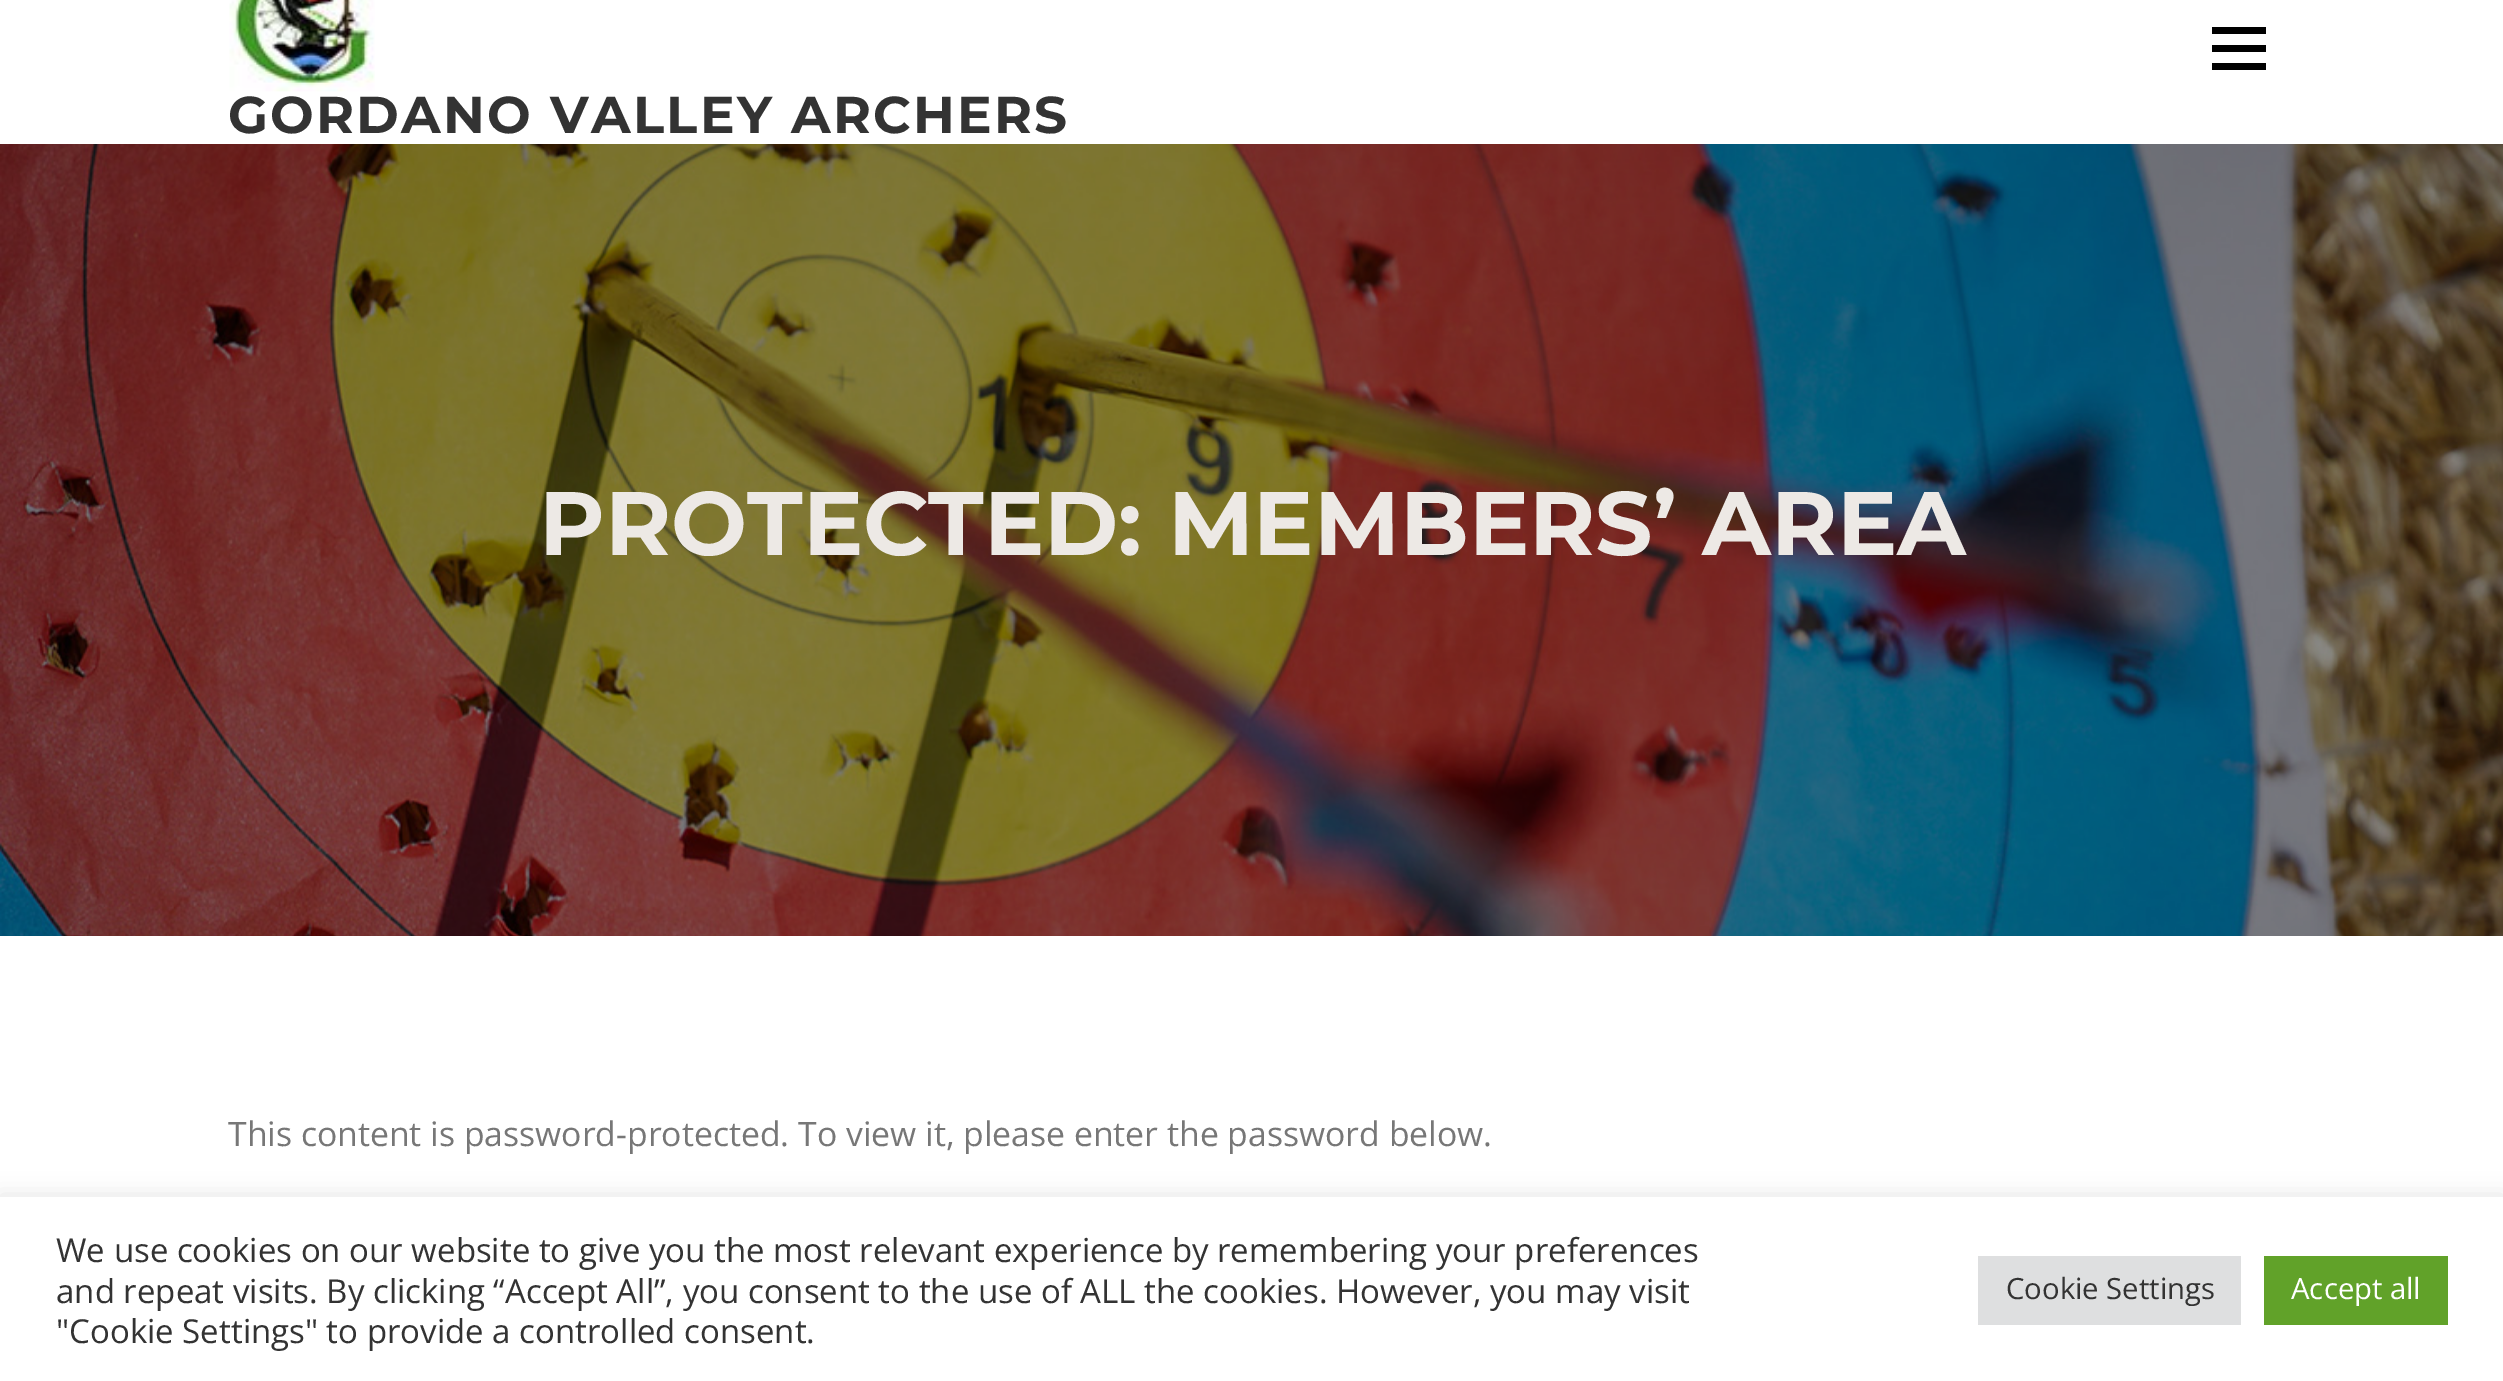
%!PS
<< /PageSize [2503 1381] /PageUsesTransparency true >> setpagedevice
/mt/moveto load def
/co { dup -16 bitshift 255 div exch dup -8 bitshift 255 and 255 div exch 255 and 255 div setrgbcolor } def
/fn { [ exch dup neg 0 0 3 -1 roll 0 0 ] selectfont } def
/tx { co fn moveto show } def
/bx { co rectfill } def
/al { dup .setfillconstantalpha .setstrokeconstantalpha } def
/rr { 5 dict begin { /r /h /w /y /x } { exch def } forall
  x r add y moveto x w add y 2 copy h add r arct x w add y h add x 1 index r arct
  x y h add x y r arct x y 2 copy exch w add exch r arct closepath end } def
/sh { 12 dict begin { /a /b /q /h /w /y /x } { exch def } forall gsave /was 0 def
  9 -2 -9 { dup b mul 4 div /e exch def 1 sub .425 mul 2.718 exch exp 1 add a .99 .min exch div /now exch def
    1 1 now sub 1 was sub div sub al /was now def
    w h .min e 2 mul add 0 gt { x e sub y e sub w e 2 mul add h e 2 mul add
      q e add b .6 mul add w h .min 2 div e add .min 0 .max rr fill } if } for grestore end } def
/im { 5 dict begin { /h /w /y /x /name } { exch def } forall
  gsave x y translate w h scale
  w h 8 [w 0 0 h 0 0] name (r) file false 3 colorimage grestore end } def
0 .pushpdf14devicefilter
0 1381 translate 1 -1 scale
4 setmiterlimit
0 0 2503 1381 16#FFFFFF bx
2212 45 54 7 16#000000 bx
2212 27 54 7 16#000000 bx
2212 63 54 7 16#000000 bx
(media/1.raw) 229 0 146 92 im
(media/2.raw) 0 144 2503 792 im
16#ACABAB co
0 1195 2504 184 0 11 .3 sh
0 1197 2503 184 16#FFFFFF bx
1978 1256 263 69 16#DEDFE0 bx
2264 1256 184 69 16#61A229 bx
/Montserrat-Bold 51.75 fn
16#333333 co
228 133 mt 2.25 0 (GORDANO VALLEY ARCHERS) ashow
(PROTECTED: MEMBERS’ AREA) 539 555 /Montserrat-Bold 90 16#EDE9E5 tx
(This content is password-protected. To view it, please enter the password below.) 228 1146 /OpenSans-Regular 33.75 16#777777 tx
(We use cookies on our website to give you the most relevant experience by remembering your preferences) 56 1262 /OpenSans-Regular 33 16#333333 tx
(and repeat visits. By clicking “Accept All”, you consent to the use of ALL the cookies. However, you may visit) 56 1303 /OpenSans-Regular 33 16#333333 tx
("Cookie Settings" to provide a controlled consent.) 56 1343 /OpenSans-Regular 33 16#333333 tx
(Cookie Settings) 2006 1299 /OpenSans-Regular 29.25 16#333333 tx
(Accept all) 2291 1299 /OpenSans-Regular 29.25 16#FFFFFF tx
.poppdf14devicefilter showpage
